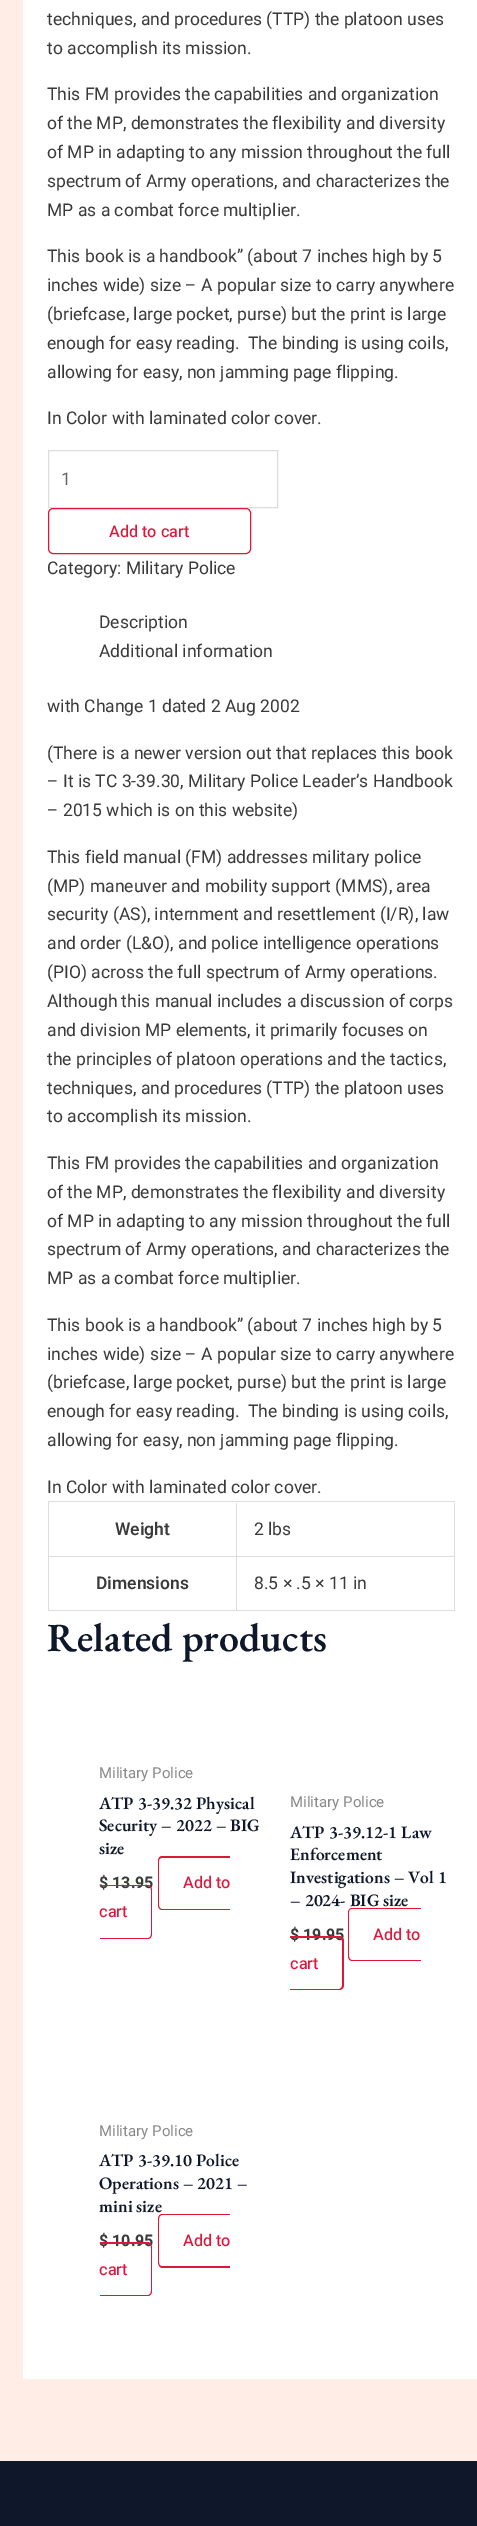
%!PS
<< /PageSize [477 2526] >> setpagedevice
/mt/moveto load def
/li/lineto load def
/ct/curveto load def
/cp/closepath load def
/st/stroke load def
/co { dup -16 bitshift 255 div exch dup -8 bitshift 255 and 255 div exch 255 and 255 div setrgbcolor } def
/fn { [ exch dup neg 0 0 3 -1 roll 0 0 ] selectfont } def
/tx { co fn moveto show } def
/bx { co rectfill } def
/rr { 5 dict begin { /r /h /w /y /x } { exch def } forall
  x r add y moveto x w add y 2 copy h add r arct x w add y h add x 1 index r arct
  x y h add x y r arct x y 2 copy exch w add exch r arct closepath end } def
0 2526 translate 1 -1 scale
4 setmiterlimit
0 0 477 2526 16#FFEDE6 bx
23 0 454 2379 16#FFFFFF bx
16#DDDDDD co
48.5 450.5 229 57 rectstroke
16#DD183B co
48.5 508.5 202 45 4.5 rr st
48 1501 407 1 16#DDDDDD bx
48 1501 1 110 16#DDDDDD bx
236 1503 1 108 16#DDDDDD bx
49 1556 189 1 16#DDDDDD bx
454 1503 1 108 16#DDDDDD bx
238 1556 217 1 16#DDDDDD bx
49 1610 406 1 16#DDDDDD bx
16#DD183B co
162 1856 mt 230 1856 li 230 1910 li 162 1910 li 160 1910 158 1908 158 1905 ct 158 1861 li 158 1858 160 1856 162 1856 ct cp 162 1858 mt 230 1858 li 230 1909 li 162 1909 li 160 1909 159 1907 159 1905 ct 159 1861 li 159 1859 160 1858 162 1858 ct cp eofill
352 1908 mt 421 1908 li 421 1961 li 352 1961 li 350 1961 348 1959 348 1956 ct 348 1912 li 348 1910 350 1908 352 1908 ct cp 352 1909 mt 421 1909 li 421 1960 li 352 1960 li 350 1960 349 1958 349 1956 ct 349 1912 li 349 1910 350 1909 352 1909 ct cp eofill
162 2214 mt 230 2214 li 230 2268 li 162 2268 li 160 2268 158 2265 158 2262 ct 158 2219 li 158 2216 160 2214 162 2214 ct cp 162 2215 mt 230 2215 li 230 2266 li 162 2266 li 160 2266 159 2265 159 2262 ct 159 2219 li 159 2217 160 2215 162 2215 ct cp eofill
0 2461 477 65 16#0F172A bx
(techniques, and procedures \(TTP\) the platoon uses) 47 25 /Heebo-Regular 17.5 16#3A3A3A tx
(to accomplish its mission.) 47 54 /Heebo-Regular 17.5 16#3A3A3A tx
(This FM provides the capabilities and organization) 47 100 /Heebo-Regular 17.5 16#3A3A3A tx
(of the MP, demonstrates the flexibility and diversity) 47 129 /Heebo-Regular 17.5 16#3A3A3A tx
(of MP in adapting to any mission throughout the full) 47 158 /Heebo-Regular 17.5 16#3A3A3A tx
(spectrum of Army operations, and characterizes the) 47 187 /Heebo-Regular 17.5 16#3A3A3A tx
(MP as a combat force multiplier.) 47 216 /Heebo-Regular 17.5 16#3A3A3A tx
(This book is a handbook” \(about 7 inches high by 5) 47 262 /Heebo-Regular 17.5 16#3A3A3A tx
(inches wide\) size – A popular size to carry anywhere) 47 291 /Heebo-Regular 17.5 16#3A3A3A tx
(\(briefcase, large pocket, purse\) but the print is large) 47 320 /Heebo-Regular 17.5 16#3A3A3A tx
(enough for easy reading.  The binding is using coils,) 47 349 /Heebo-Regular 17.5 16#3A3A3A tx
(allowing for easy, non jamming page flipping.) 47 378 /Heebo-Regular 17.5 16#3A3A3A tx
(In Color with laminated color cover.) 47 424 /Heebo-Regular 17.5 16#3A3A3A tx
(1) 61 485 /Heebo-Regular 17.5 16#666666 tx
(Add to cart) 109 537 /Heebo-Medium 16.25 16#DD183B tx
(Category: Military Police) 47 574 /Heebo-Regular 17.5 16#3A3A3A tx
(Description) 99 628 /Heebo-Regular 17.5 16#3A3A3A tx
(Additional information) 99 657 /Heebo-Regular 17.5 16#3A3A3A tx
(with Change 1 dated 2 Aug 2002) 47 712 /Heebo-Regular 17.5 16#3A3A3A tx
(\(There is a newer version out that replaces this book) 47 759 /Heebo-Regular 17.5 16#3A3A3A tx
(– It is TC 3-39.30, Military Police Leader’s Handbook) 47 787 /Heebo-Regular 17.5 16#3A3A3A tx
(– 2015 which is on this website\)) 47 816 /Heebo-Regular 17.5 16#3A3A3A tx
(This field manual \(FM\) addresses military police) 47 863 /Heebo-Regular 17.5 16#3A3A3A tx
(\(MP\) maneuver and mobility support \(MMS\), area) 47 892 /Heebo-Regular 17.5 16#3A3A3A tx
(security \(AS\), internment and resettlement \(I/R\), law) 47 920 /Heebo-Regular 17.5 16#3A3A3A tx
(and order \(L&O\), and police intelligence operations) 47 949 /Heebo-Regular 17.5 16#3A3A3A tx
(\(PIO\) across the full spectrum of Army operations.) 47 978 /Heebo-Regular 17.5 16#3A3A3A tx
(Although this manual includes a discussion of corps) 47 1007 /Heebo-Regular 17.5 16#3A3A3A tx
(and division MP elements, it primarily focuses on) 47 1036 /Heebo-Regular 17.5 16#3A3A3A tx
(the principles of platoon operations and the tactics,) 47 1065 /Heebo-Regular 17.5 16#3A3A3A tx
(techniques, and procedures \(TTP\) the platoon uses) 47 1094 /Heebo-Regular 17.5 16#3A3A3A tx
(to accomplish its mission.) 47 1122 /Heebo-Regular 17.5 16#3A3A3A tx
(This FM provides the capabilities and organization) 47 1169 /Heebo-Regular 17.5 16#3A3A3A tx
(of the MP, demonstrates the flexibility and diversity) 47 1198 /Heebo-Regular 17.5 16#3A3A3A tx
(of MP in adapting to any mission throughout the full) 47 1227 /Heebo-Regular 17.5 16#3A3A3A tx
(spectrum of Army operations, and characterizes the) 47 1255 /Heebo-Regular 17.5 16#3A3A3A tx
(MP as a combat force multiplier.) 47 1284 /Heebo-Regular 17.5 16#3A3A3A tx
(This book is a handbook” \(about 7 inches high by 5) 47 1331 /Heebo-Regular 17.5 16#3A3A3A tx
(inches wide\) size – A popular size to carry anywhere) 47 1360 /Heebo-Regular 17.5 16#3A3A3A tx
(\(briefcase, large pocket, purse\) but the print is large) 47 1388 /Heebo-Regular 17.5 16#3A3A3A tx
(enough for easy reading.  The binding is using coils,) 47 1417 /Heebo-Regular 17.5 16#3A3A3A tx
(allowing for easy, non jamming page flipping.) 47 1446 /Heebo-Regular 17.5 16#3A3A3A tx
(In Color with laminated color cover.) 47 1493 /Heebo-Regular 17.5 16#3A3A3A tx
(Weight) 115 1535 /Heebo-SemiBold 17.5 16#3A3A3A tx
(2 lbs) 254 1535 /Heebo-Regular 17.5 16#3A3A3A tx
(Dimensions) 96 1589 /Heebo-SemiBold 17.5 16#3A3A3A tx
(8.5 × .5 × 11 in) 254 1589 /Heebo-Regular 17.5 16#3A3A3A tx
(Related products) 47 1651 /EBGaramond-SemiBold 40 16#0F172A tx
(Military Police) 99 1778 /Heebo-Regular 15 16#898989 tx
(ATP 3-39.32 Physical) 99 1809 /EBGaramond-SemiBold 17.5 16#0F172A tx
(Security – 2022 – BIG) 99 1831 /EBGaramond-SemiBold 17.5 16#0F172A tx
(size) 99 1854 /EBGaramond-SemiBold 17.5 16#0F172A tx
($ 13.95) 99 1888 /Heebo-Bold 16 16#3A3A3A tx
(Add to) 183 1888 /Heebo-Medium 16.25 16#DD183B tx
100 1885 mt 148 1885 li 150 1885 152 1887 152 1890 ct 152 1934 li 152 1937 150 1939 148 1939 ct 100 1939 li cp 100 1886 mt 148 1886 li 150 1886 151 1888 151 1890 ct 151 1934 li 151 1936 150 1938 148 1938 ct 100 1938 li cp eofill
(cart) 99 1917 /Heebo-Medium 16.25 16#DD183B tx
(Military Police) 290 1807 /Heebo-Regular 15 16#898989 tx
(ATP 3-39.12-1 Law) 290 1838 /EBGaramond-SemiBold 17.5 16#0F172A tx
(Enforcement) 290 1860 /EBGaramond-SemiBold 17.5 16#0F172A tx
(Investigations – Vol 1) 290 1883 /EBGaramond-SemiBold 17.5 16#0F172A tx
(– 2024- BIG size) 290 1906 /EBGaramond-SemiBold 17.5 16#0F172A tx
($ 19.95) 290 1940 /Heebo-Bold 16 16#3A3A3A tx
(Add to) 373 1940 /Heebo-Medium 16.25 16#DD183B tx
290 1936 mt 339 1936 li 342 1936 344 1938 344 1941 ct 344 1985 li 344 1988 342 1990 339 1990 ct 290 1990 li cp 290 1938 mt 339 1938 li 341 1938 342 1939 342 1941 ct 342 1985 li 342 1987 341 1989 339 1989 ct 290 1989 li cp eofill
(cart) 290 1969 /Heebo-Medium 16.25 16#DD183B tx
(Military Police) 99 2136 /Heebo-Regular 15 16#898989 tx
(ATP 3-39.10 Police) 99 2166 /EBGaramond-SemiBold 17.5 16#0F172A tx
(Operations – 2021 –) 99 2189 /EBGaramond-SemiBold 17.5 16#0F172A tx
(mini size) 99 2212 /EBGaramond-SemiBold 17.5 16#0F172A tx
($ 10.95) 99 2246 /Heebo-Bold 16 16#3A3A3A tx
(Add to) 183 2246 /Heebo-Medium 16.25 16#DD183B tx
100 2242 mt 148 2242 li 150 2242 152 2245 152 2248 ct 152 2291 li 152 2294 150 2296 148 2296 ct 100 2296 li cp 100 2244 mt 148 2244 li 150 2244 151 2245 151 2248 ct 151 2291 li 151 2293 150 2295 148 2295 ct 100 2295 li cp eofill
(cart) 99 2275 /Heebo-Medium 16.25 16#DD183B tx
showpage
